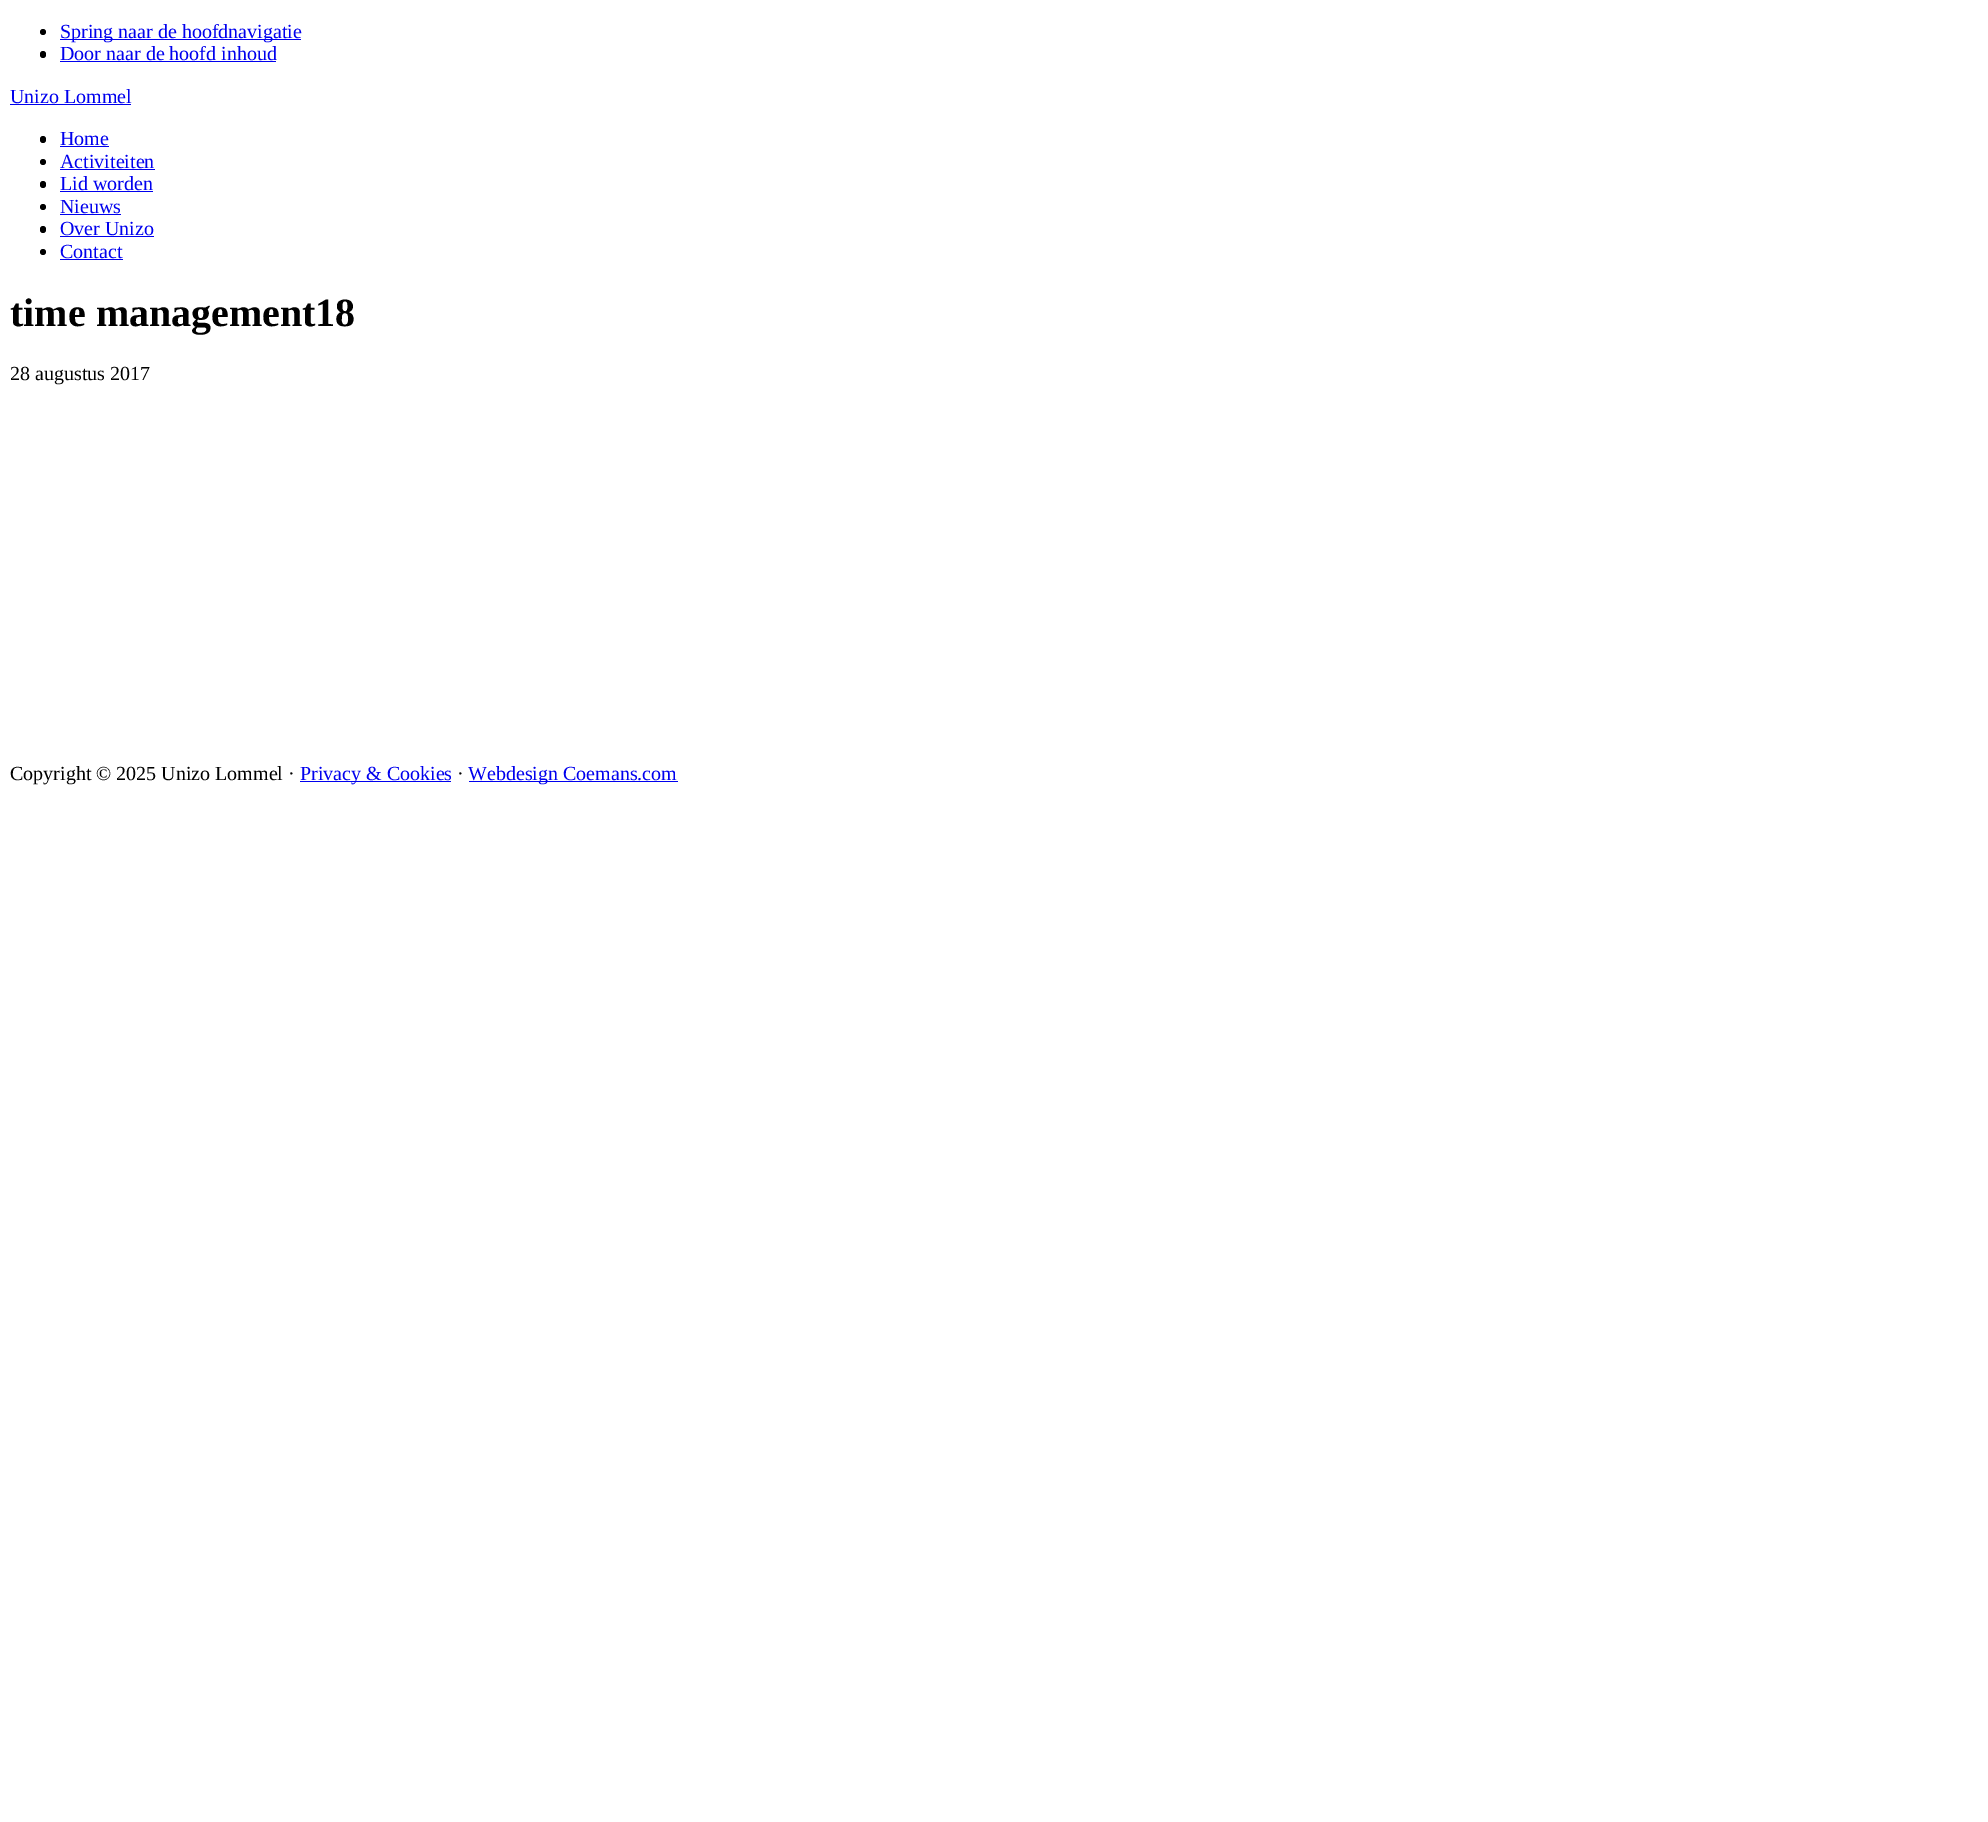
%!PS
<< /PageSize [1988 1822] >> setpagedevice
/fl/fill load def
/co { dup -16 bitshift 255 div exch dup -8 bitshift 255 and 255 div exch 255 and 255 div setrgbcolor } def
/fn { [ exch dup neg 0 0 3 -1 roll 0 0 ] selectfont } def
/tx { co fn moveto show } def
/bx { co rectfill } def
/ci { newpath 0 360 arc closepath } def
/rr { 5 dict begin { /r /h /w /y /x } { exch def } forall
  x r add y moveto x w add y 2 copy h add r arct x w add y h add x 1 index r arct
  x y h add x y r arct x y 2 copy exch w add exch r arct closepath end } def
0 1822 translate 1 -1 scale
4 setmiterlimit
0 0 1988 1822 16#FFFFFF bx
16#000000 co
43 32 3 ci fl
60 39 241 1 16#0000EE bx
16#000000 co
40 51 6 7 3 rr fl
60 61 216 1 16#0000EE bx
10 104 121 1 16#0000EE bx
16#000000 co
40 136 6 7 3 rr fl
60 146 49 1 16#0000EE bx
16#000000 co
43 162 3 ci fl
60 169 95 1 16#0000EE bx
16#000000 co
40 181 6 7 3 rr fl
60 191 93 1 16#0000EE bx
16#000000 co
43 207 3 ci fl
60 214 61 1 16#0000EE bx
16#000000 co
40 226 6 7 3 rr fl
60 236 94 1 16#0000EE bx
16#000000 co
43 252 3 ci fl
60 259 63 1 16#0000EE bx
300 781 151 1 16#0000EE bx
469 781 209 1 16#0000EE bx
(Spring naar de hoofdnavigatie) 60 38 /LiberationSerif-Regular 20 16#0000EE tx
(Door naar de hoofd inhoud) 60 60 /LiberationSerif-Regular 20 16#0000EE tx
(Unizo Lommel) 10 103 /LiberationSerif-Regular 20 16#0000EE tx
(Home) 60 145 /LiberationSerif-Regular 20 16#0000EE tx
(Activiteiten) 60 168 /LiberationSerif-Regular 20 16#0000EE tx
(Lid worden) 60 190 /LiberationSerif-Regular 20 16#0000EE tx
(Nieuws) 60 213 /LiberationSerif-Regular 20 16#0000EE tx
(Over Unizo) 60 235 /LiberationSerif-Regular 20 16#0000EE tx
(Contact) 60 258 /LiberationSerif-Regular 20 16#0000EE tx
(time management18) 10 326 /LiberationSerif-Bold 40 16#000000 tx
(28 augustus 2017) 10 380 /LiberationSerif-Regular 20 16#000000 tx
(Copyright © 2025 Unizo Lommel ·) 10 780 /LiberationSerif-Regular 20 16#000000 tx
(Privacy & Cookies) 300 780 /LiberationSerif-Regular 20 16#0000EE tx
(·) 457 780 /LiberationSerif-Regular 20 16#000000 tx
(Webdesign Coemans.com) 468 780 /LiberationSerif-Regular 20 16#0000EE tx
showpage
